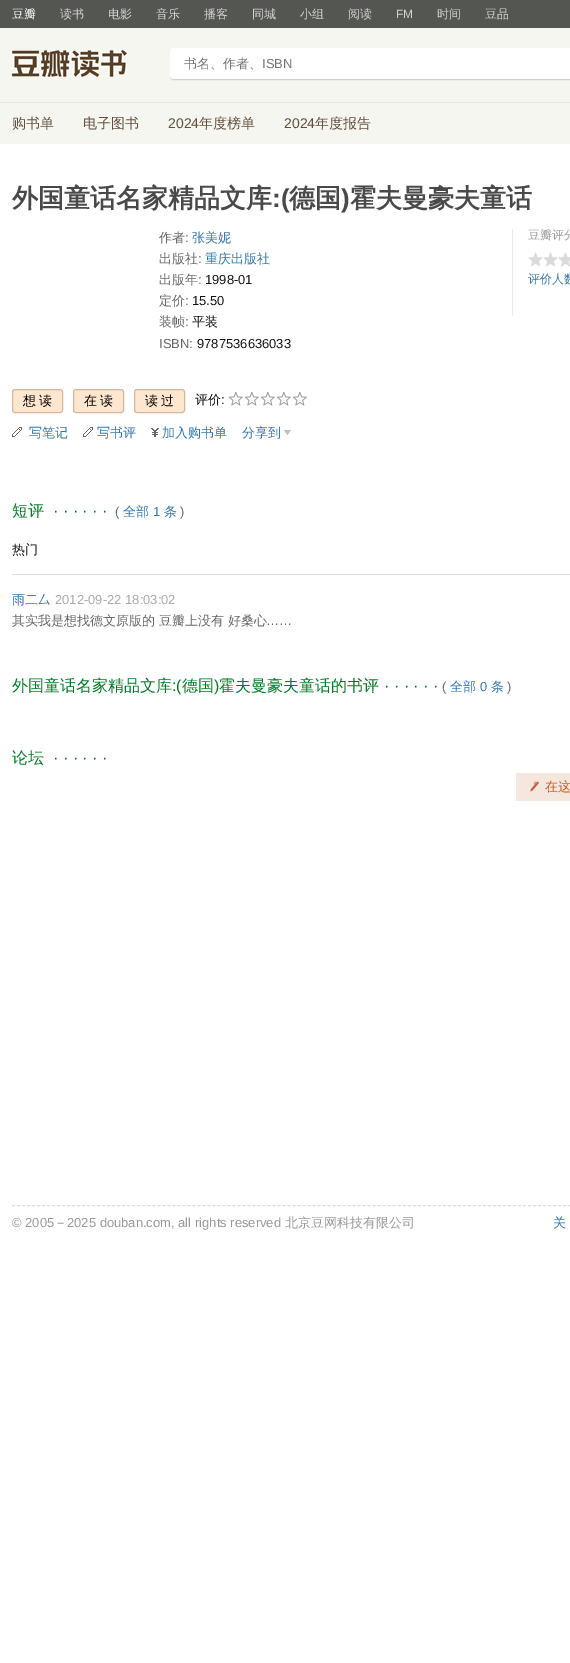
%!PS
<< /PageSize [570 1663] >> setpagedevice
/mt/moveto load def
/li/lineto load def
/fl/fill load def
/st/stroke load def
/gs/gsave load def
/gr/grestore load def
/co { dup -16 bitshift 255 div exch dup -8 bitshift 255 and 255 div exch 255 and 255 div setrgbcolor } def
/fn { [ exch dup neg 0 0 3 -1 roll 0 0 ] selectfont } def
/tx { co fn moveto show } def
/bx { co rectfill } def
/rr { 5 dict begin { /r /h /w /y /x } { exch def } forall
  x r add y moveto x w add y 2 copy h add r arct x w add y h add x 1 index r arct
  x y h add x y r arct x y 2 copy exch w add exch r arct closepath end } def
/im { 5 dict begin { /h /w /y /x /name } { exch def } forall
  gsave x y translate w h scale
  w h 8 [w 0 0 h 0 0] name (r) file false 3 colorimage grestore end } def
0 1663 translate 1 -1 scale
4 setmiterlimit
0 0 570 1663 16#FFFFFF bx
0 0 570 28 16#545652 bx
0 28 570 116 16#F6F6F1 bx
0 102 570 1 16#E9E9E2 bx
(media/1.raw) 12 50 115 27 im
(media/2.raw) 170 48 400 33 im
512 229 1 87 16#EAEAEA bx
(media/3.raw) 528 252 42 15 im
16#FFE6CE co
12.5 389.5 50 23 2.5 rr gs fl gr
16#D6B79D co
st
16#FFE6CE co
73.5 389.5 50 23 2.5 rr gs fl gr
16#D6B79D co
st
16#FFE6CE co
134.5 389.5 50 23 2.5 rr gs fl gr
16#D6B79D co
st
(media/4.raw) 228 391 15 15 im
(media/4.raw) 244 391 15 15 im
(media/4.raw) 260 391 15 15 im
(media/4.raw) 276 391 15 15 im
(media/4.raw) 292 391 15 15 im
(media/5.raw) 12 427 10 10 im
(media/5.raw) 83 427 10 10 im
(media/6.raw) 151 428 8 9 im
(media/7.raw) 284 430 7 5 im
16#DDDDDD co
12 574 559 1 .5 rr fl
16#F6E7DE co
516 773 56 28 2 rr fl
(media/8.raw) 530 781 9 11 im
16#DDDDDD co
[3 2.01] 0 setdash
12 1205.5 mt 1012 1205.5 li st
(豆瓣) 12 18 /WenQuanYiZenHei-Medium 12 16#FFFFFF tx
(读书) 60 18 /WenQuanYiZenHei-Medium 12 16#D5D5D5 tx
(电影) 108 18 /WenQuanYiZenHei-Medium 12 16#D5D5D5 tx
(音乐) 156 18 /WenQuanYiZenHei-Medium 12 16#D5D5D5 tx
(播客) 204 18 /WenQuanYiZenHei-Medium 12 16#D5D5D5 tx
(同城) 252 18 /WenQuanYiZenHei-Medium 12 16#D5D5D5 tx
(小组) 300 18 /WenQuanYiZenHei-Medium 12 16#D5D5D5 tx
(阅读) 348 18 /WenQuanYiZenHei-Medium 12 16#D5D5D5 tx
(FM) 396 18 /LiberationSans-Regular 12 16#D5D5D5 tx
(时间) 437 18 /WenQuanYiZenHei-Medium 12 16#D5D5D5 tx
(豆品) 485 18 /WenQuanYiZenHei-Medium 12 16#D5D5D5 tx
(书名、作者、) 184 68 /WenQuanYiZenHei-Medium 13 16#757575 tx
(ISBN) 262 68 /LiberationSans-Regular 13 16#757575 tx
(购书单) 12 128 /WenQuanYiZenHei-Medium 14 16#614E3C tx
(电子图书) 83 128 /WenQuanYiZenHei-Medium 14 16#614E3C tx
(2024) 168 128 /LiberationSans-Regular 14 16#614E3C tx
(年度榜单) 199 128 /WenQuanYiZenHei-Medium 14 16#614E3C tx
(2024) 284 128 /LiberationSans-Regular 14 16#614E3C tx
(年度报告) 315 128 /WenQuanYiZenHei-Medium 14 16#614E3C tx
(外国童话名家精品文库) 12 207 /WenQuanYiZenHei-Bold 26 16#494949 tx
(:\() 272 207 /LiberationSans-Bold 26 16#494949 tx
(德国) 289 207 /WenQuanYiZenHei-Bold 26 16#494949 tx
(\)) 341 207 /LiberationSans-Bold 26 16#494949 tx
(霍夫曼豪夫童话) 350 207 /WenQuanYiZenHei-Bold 26 16#494949 tx
(作者) 159 242 /WenQuanYiZenHei-Medium 13 16#666666 tx
(:) 185 242 /LiberationSans-Regular 13 16#666666 tx
(张美妮) 192 242 /WenQuanYiZenHei-Medium 13 16#3377AA tx
(出版社) 159 263 /WenQuanYiZenHei-Medium 13 16#666666 tx
(:) 198 263 /LiberationSans-Regular 13 16#666666 tx
(重庆出版社) 205 263 /WenQuanYiZenHei-Medium 13 16#3377AA tx
(出版年) 159 284 /WenQuanYiZenHei-Medium 13 16#666666 tx
(:) 198 284 /LiberationSans-Regular 13 16#666666 tx
(1998-01) 205 284 /LiberationSans-Regular 13 16#111111 tx
(定价) 159 305 /WenQuanYiZenHei-Medium 13 16#666666 tx
(:) 185 305 /LiberationSans-Regular 13 16#666666 tx
(15.50) 192 305 /LiberationSans-Regular 13 16#111111 tx
(装帧) 159 326 /WenQuanYiZenHei-Medium 13 16#666666 tx
(:) 185 326 /LiberationSans-Regular 13 16#666666 tx
(平装) 192 326 /WenQuanYiZenHei-Medium 13 16#111111 tx
(ISBN:) 159 348 /LiberationSans-Regular 13 16#666666 tx
(9787536636033) 197 348 /LiberationSans-Regular 13 16#111111 tx
(豆瓣评分) 528 239 /WenQuanYiZenHei-Medium 12 16#999999 tx
(评价人数) 528 283 /WenQuanYiZenHei-Medium 12 16#3377AA tx
/WenQuanYiZenHei-Medium 13 fn
16#000000 co
23 405 mt 3 0 (想读) ashow
84 405 mt 3 0 (在读) ashow
145 405 mt 3 0 (读过) ashow
(评价) 195 404 /WenQuanYiZenHei-Medium 13 16#111111 tx
(:) 221 404 /LiberationSans-Regular 13 16#111111 tx
(写笔记) 29 437 /WenQuanYiZenHei-Medium 13 16#3377AA tx
(写书评) 97 437 /WenQuanYiZenHei-Medium 13 16#3377AA tx
(加入购书单) 162 437 /WenQuanYiZenHei-Medium 13 16#3377AA tx
(分享到) 242 437 /WenQuanYiZenHei-Medium 13 16#3377AA tx
(短评) 12 516 /WenQuanYiZenHei-Medium 16 16#007722 tx
(· · · · · ·) 53 516 /LiberationSans-Regular 16 16#007722 tx
(\() 115 516 /LiberationSans-Regular 13 16#666666 tx
(全部) 123 516 /WenQuanYiZenHei-Medium 13 16#3377AA tx
(1) 153 516 /LiberationSans-Regular 13 16#3377AA tx
(条) 164 516 /WenQuanYiZenHei-Medium 13 16#3377AA tx
(\)) 180 516 /LiberationSans-Regular 13 16#666666 tx
(热门) 12 554 /WenQuanYiZenHei-Medium 13 16#111111 tx
(雨二厶) 12 604 /WenQuanYiZenHei-Medium 13 16#3377AA tx
(2012-09-22 18:03:02) 55 604 /LiberationSans-Regular 13 16#AAAAAA tx
(其实我是想找德文原版的 豆瓣上没有 好桑心) 12 625 /WenQuanYiZenHei-Medium 13 16#666666 tx
(……) 266 625 /LiberationSans-Regular 13 16#666666 tx
(外国童话名家精品文库) 12 691 /WenQuanYiZenHei-Medium 16 16#007722 tx
(:\() 172 691 /LiberationSans-Regular 16 16#007722 tx
(德国) 182 691 /WenQuanYiZenHei-Medium 16 16#007722 tx
(\)) 214 691 /LiberationSans-Regular 16 16#007722 tx
(霍夫曼豪夫童话的书评) 219 691 /WenQuanYiZenHei-Medium 16 16#007722 tx
(· · · · · ·) 384 691 /LiberationSans-Regular 16 16#007722 tx
(\() 442 691 /LiberationSans-Regular 13 16#666666 tx
(全部) 450 691 /WenQuanYiZenHei-Medium 13 16#3377AA tx
(0) 480 691 /LiberationSans-Regular 13 16#3377AA tx
(条) 491 691 /WenQuanYiZenHei-Medium 13 16#3377AA tx
(\)) 507 691 /LiberationSans-Regular 13 16#666666 tx
(论坛) 12 763 /WenQuanYiZenHei-Medium 16 16#007722 tx
(· · · · · ·) 53 763 /LiberationSans-Regular 16 16#007722 tx
(在这) 545 791 /WenQuanYiZenHei-Medium 13 16#C65E24 tx
(© 2005) 12 1227 /LiberationSans-Regular 13 16#999999 tx
(－) 54 1227 /WenQuanYiZenHei-Medium 13 16#999999 tx
(2025 douban.com, all rights reserved) 67 1227 /LiberationSans-Regular 13 16#999999 tx
(北京豆网科技有限公司) 285 1227 /WenQuanYiZenHei-Medium 13 16#999999 tx
(关) 553 1227 /WenQuanYiZenHei-Medium 13 16#3377AA tx
showpage
